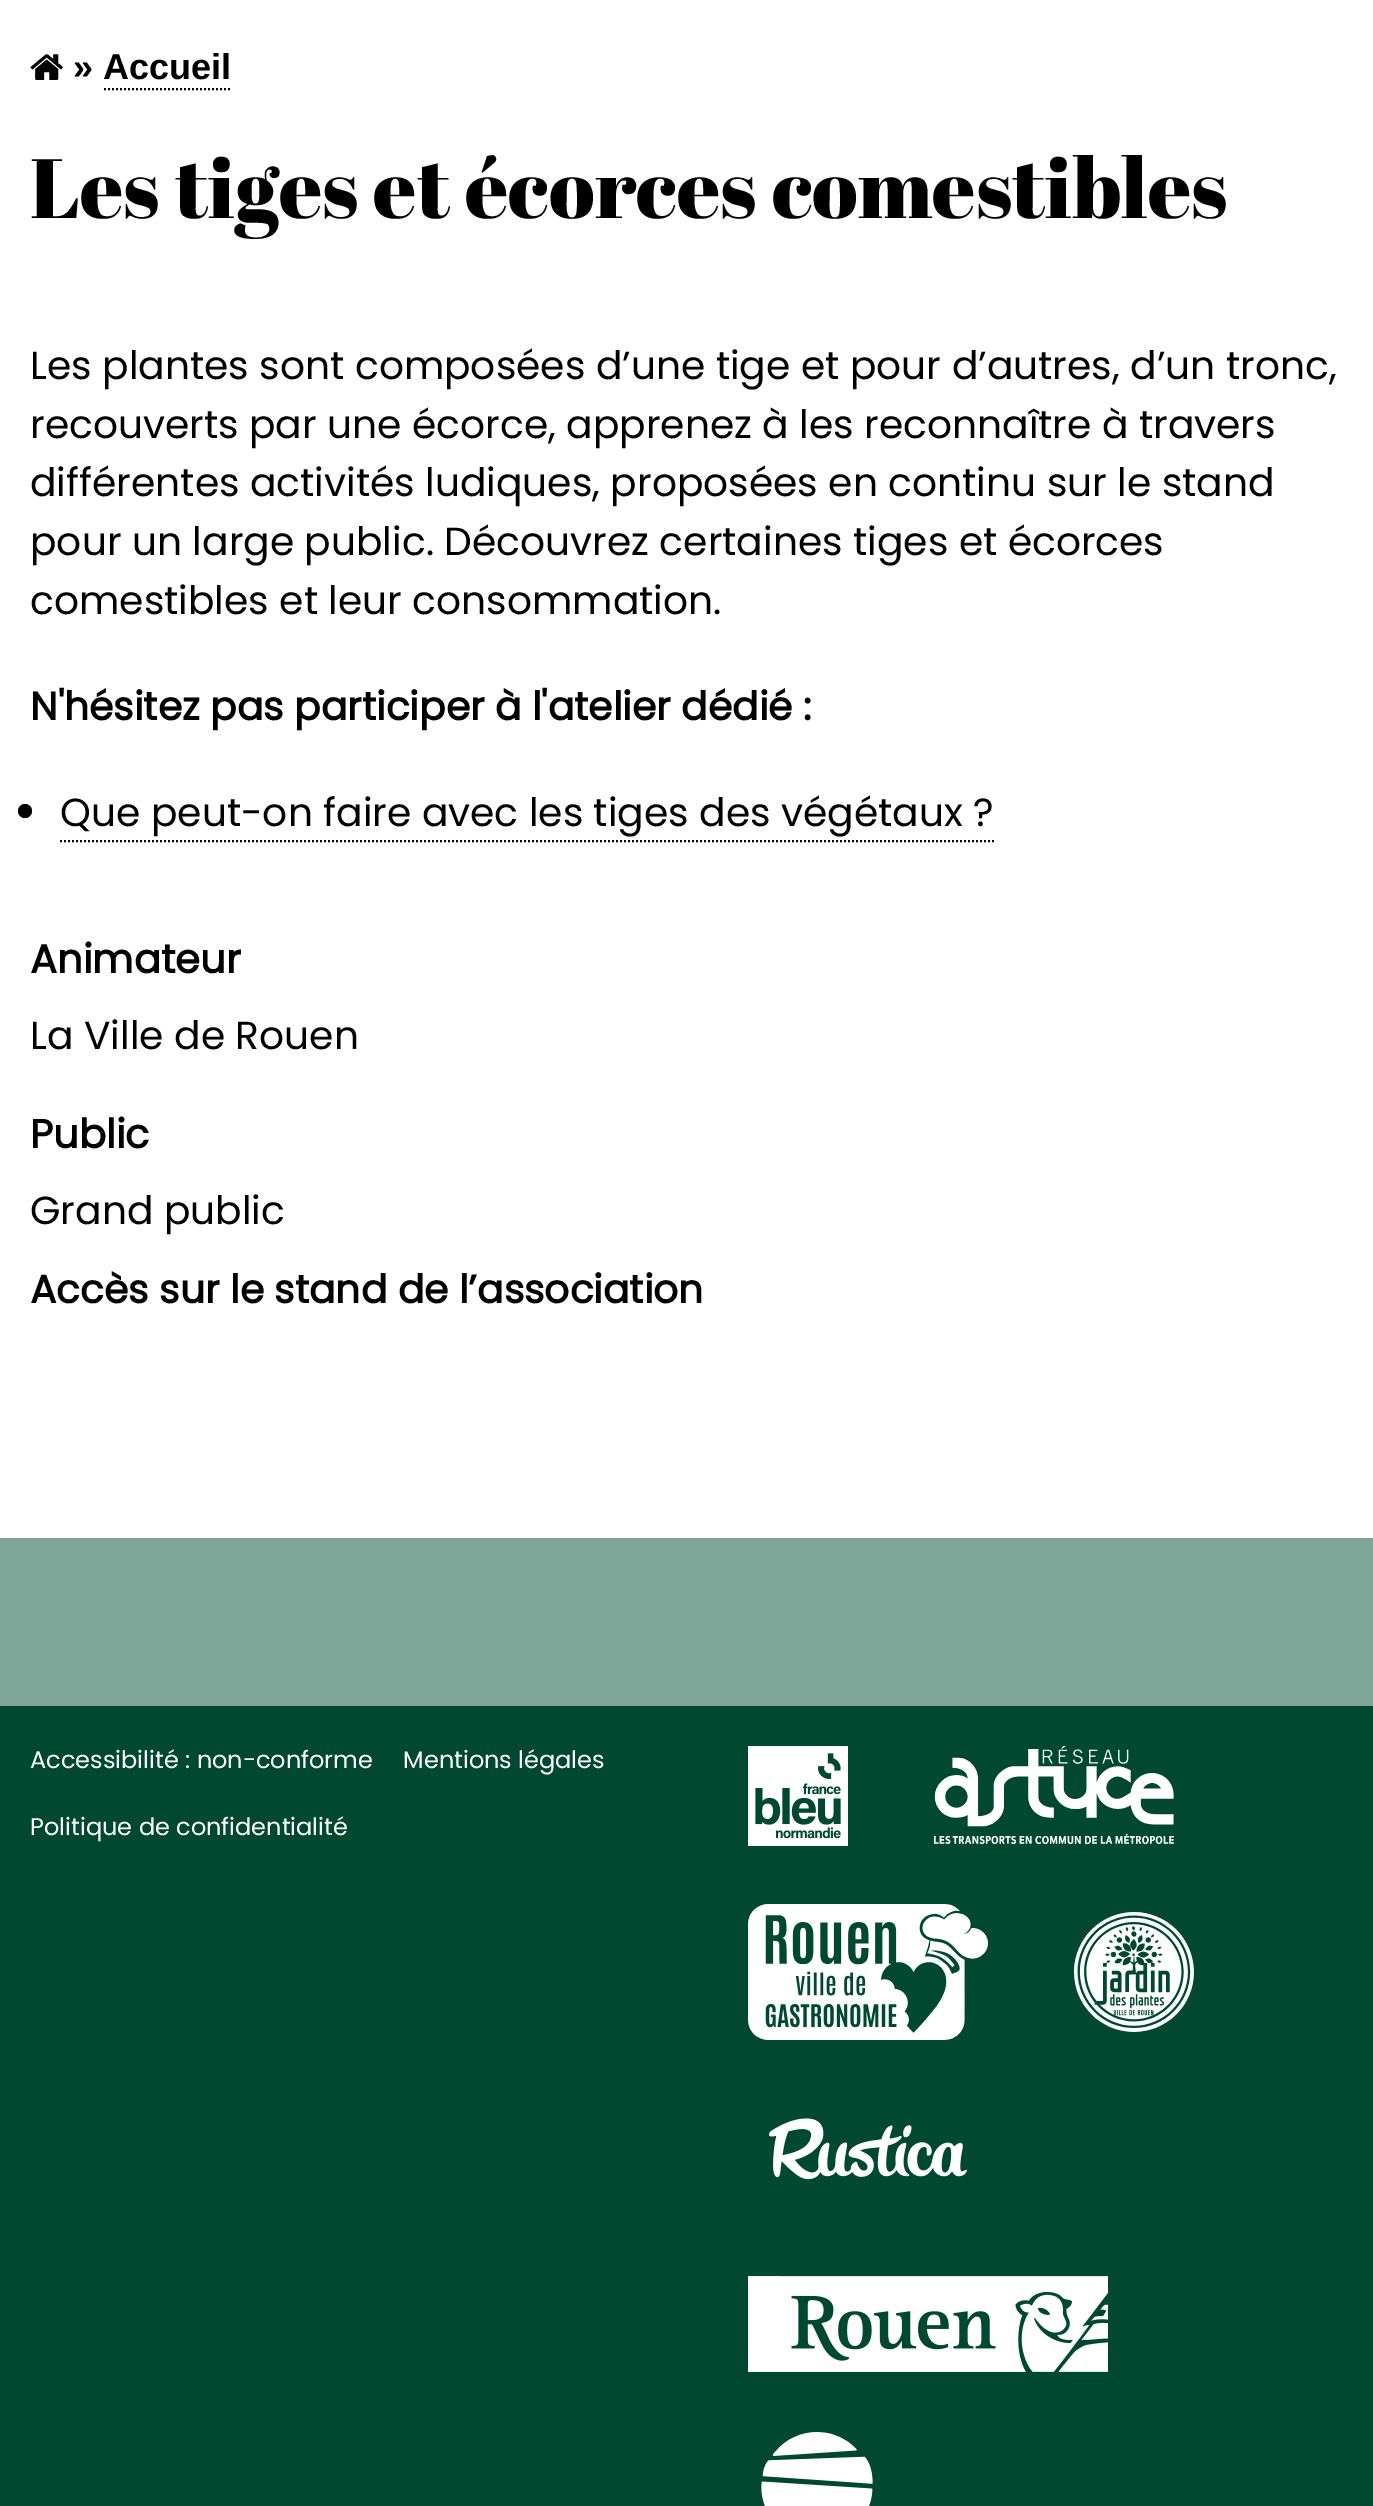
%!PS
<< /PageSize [1373 2506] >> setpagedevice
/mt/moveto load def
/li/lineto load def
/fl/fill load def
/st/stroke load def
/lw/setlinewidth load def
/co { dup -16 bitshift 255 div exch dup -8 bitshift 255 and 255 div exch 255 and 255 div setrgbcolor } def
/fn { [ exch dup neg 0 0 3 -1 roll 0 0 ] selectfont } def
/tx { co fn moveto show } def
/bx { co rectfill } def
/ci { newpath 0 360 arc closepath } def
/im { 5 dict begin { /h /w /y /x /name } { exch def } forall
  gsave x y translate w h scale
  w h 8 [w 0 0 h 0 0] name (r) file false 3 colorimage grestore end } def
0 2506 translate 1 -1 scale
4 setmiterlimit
0 0 1373 2506 16#FFFFFF bx
(media/1.raw) 30 54 33 26 im
16#000000 co
2 lw
[2 2] 0 setdash
104 89 mt 232 89 li st
25 811 7 ci fl
60 841 mt 994 841 li st
0 1538 1373 168 16#7FA599 bx
0 1706 1373 800 16#004830 bx
(media/2.raw) 748 1746 100 100 im
(media/3.raw) 934 1746 240 98 im
(media/4.raw) 748 1904 240 136 im
(media/5.raw) 1074 1912 120 120 im
(media/6.raw) 769 2118 198 62 im
(media/7.raw) 748 2276 360 96 im
(media/8.raw) 761 2432 112 74 im
(» Accueil) 73 79 /LiberationSans-Bold 36 16#000000 tx
(Les tiges et écorces comestibles) 30 218 /AbrilFatface-Regular 84 16#000000 tx
(Les plantes sont composées d’une tige et pour d’autres, d’un tronc,) 30 379 /Poppins-Regular 39.2 16#000000 tx
(recouverts par une écorce, apprenez à les reconnaître à travers) 30 438 /Poppins-Regular 39.2 16#000000 tx
(différentes activités ludiques, proposées en continu sur le stand) 30 496 /Poppins-Regular 39.2 16#000000 tx
(pour un large public. Découvrez certaines tiges et écorces) 30 555 /Poppins-Regular 39.2 16#000000 tx
(comestibles et leur consommation.) 30 614 /Poppins-Regular 39.2 16#000000 tx
(N'hésitez pas participer à l'atelier dédié :) 30 720 /Poppins-Bold 39.2 16#000000 tx
(Que peut-on faire avec les tiges des végétaux ?) 60 826 /Poppins-Regular 39.2 16#000000 tx
(Animateur) 30 973 /Poppins-Bold 40 16#000000 tx
(La Ville de Rouen) 30 1049 /Poppins-Regular 39.2 16#000000 tx
(Public) 30 1148 /Poppins-Bold 40 16#000000 tx
(Grand public) 30 1224 /Poppins-Regular 39.2 16#000000 tx
(Accès sur le stand de l’association) 30 1303 /Poppins-Bold 39.2 16#000000 tx
(Accessibilité : non-conforme) 30 1768 /Poppins-Regular 24 16#FFFFFF tx
(Mentions légales) 403 1768 /Poppins-Regular 24 16#FFFFFF tx
(Politique de confidentialité) 30 1835 /Poppins-Regular 24 16#FFFFFF tx
showpage
